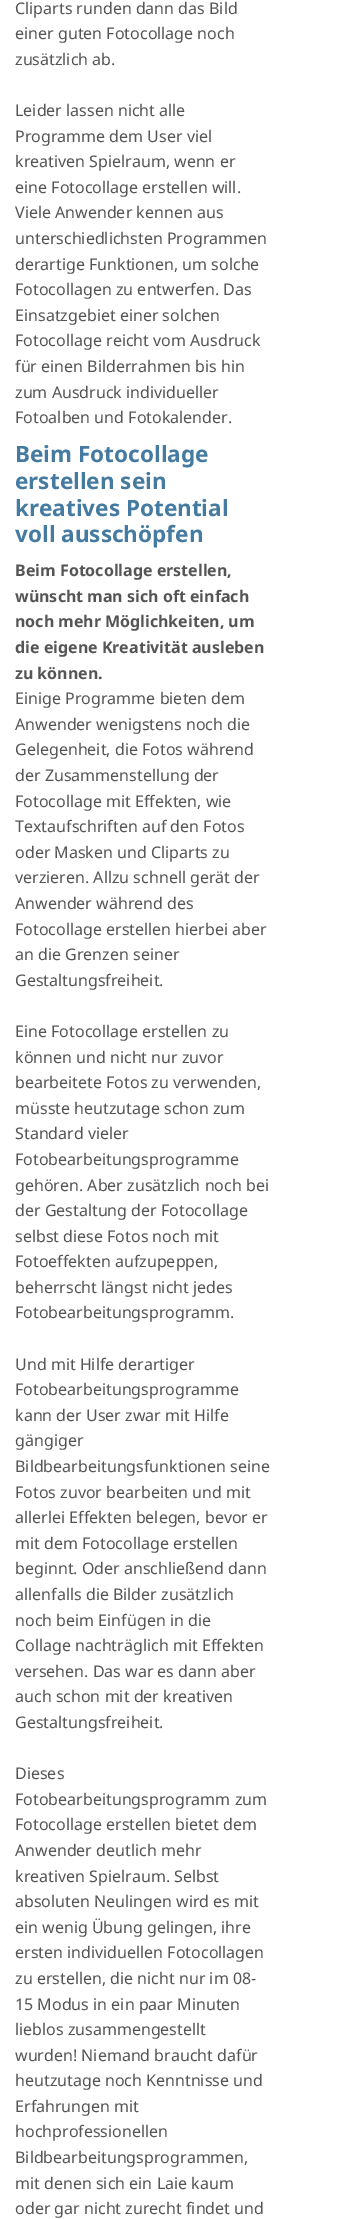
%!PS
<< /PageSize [350 2219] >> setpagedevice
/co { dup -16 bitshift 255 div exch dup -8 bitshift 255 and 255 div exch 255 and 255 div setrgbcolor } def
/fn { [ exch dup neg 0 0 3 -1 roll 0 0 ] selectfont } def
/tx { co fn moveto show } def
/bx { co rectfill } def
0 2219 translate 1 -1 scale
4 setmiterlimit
0 0 350 2219 16#FFFFFF bx
(Cliparts runden dann das Bild) 15 14 /NotoSans-Regular 16 16#555555 tx
(einer guten Fotocollage noch) 15 39 /NotoSans-Regular 16 16#555555 tx
(zusätzlich ab.) 15 65 /NotoSans-Regular 16 16#555555 tx
(Leider lassen nicht alle) 15 116 /NotoSans-Regular 16 16#555555 tx
(Programme dem User viel) 15 142 /NotoSans-Regular 16 16#555555 tx
(kreativen Spielraum, wenn er) 15 167 /NotoSans-Regular 16 16#555555 tx
(eine Fotocollage erstellen will.) 15 193 /NotoSans-Regular 16 16#555555 tx
(Viele Anwender kennen aus) 15 218 /NotoSans-Regular 16 16#555555 tx
(unterschiedlichsten Programmen) 15 244 /NotoSans-Regular 16 16#555555 tx
(derartige Funktionen, um solche) 15 270 /NotoSans-Regular 16 16#555555 tx
(Fotocollagen zu entwerfen. Das) 15 295 /NotoSans-Regular 16 16#555555 tx
(Einsatzgebiet einer solchen) 15 321 /NotoSans-Regular 16 16#555555 tx
(Fotocollage reicht vom Ausdruck) 15 346 /NotoSans-Regular 16 16#555555 tx
(für einen Bilderrahmen bis hin) 15 372 /NotoSans-Regular 16 16#555555 tx
(zum Ausdruck individueller) 15 398 /NotoSans-Regular 16 16#555555 tx
(Fotoalben und Fotokalender.) 15 423 /NotoSans-Regular 16 16#555555 tx
(Beim Fotocollage) 15 462 /NotoSans-Bold 22.5 16#457AA1 tx
(erstellen sein) 15 489 /NotoSans-Bold 22.5 16#457AA1 tx
(kreatives Potential) 15 516 /NotoSans-Bold 22.5 16#457AA1 tx
(voll ausschöpfen) 15 542 /NotoSans-Bold 22.5 16#457AA1 tx
(Beim Fotocollage erstellen,) 15 576 /NotoSans-Bold 16 16#555555 tx
(wünscht man sich oft einfach) 15 602 /NotoSans-Bold 16 16#555555 tx
(noch mehr Möglichkeiten, um) 15 627 /NotoSans-Bold 16 16#555555 tx
(die eigene Kreativität ausleben) 15 653 /NotoSans-Bold 16 16#555555 tx
(zu können.) 15 679 /NotoSans-Bold 16 16#555555 tx
(Einige Programme bieten dem) 15 704 /NotoSans-Regular 16 16#555555 tx
(Anwender wenigstens noch die) 15 730 /NotoSans-Regular 16 16#555555 tx
(Gelegenheit, die Fotos während) 15 755 /NotoSans-Regular 16 16#555555 tx
(der Zusammenstellung der) 15 781 /NotoSans-Regular 16 16#555555 tx
(Fotocollage mit Effekten, wie) 15 807 /NotoSans-Regular 16 16#555555 tx
(Textaufschriften auf den Fotos) 15 832 /NotoSans-Regular 16 16#555555 tx
(oder Masken und Cliparts zu) 15 858 /NotoSans-Regular 16 16#555555 tx
(verzieren. Allzu schnell gerät der) 15 883 /NotoSans-Regular 16 16#555555 tx
(Anwender während des) 15 909 /NotoSans-Regular 16 16#555555 tx
(Fotocollage erstellen hierbei aber) 15 935 /NotoSans-Regular 16 16#555555 tx
(an die Grenzen seiner) 15 960 /NotoSans-Regular 16 16#555555 tx
(Gestaltungsfreiheit.) 15 986 /NotoSans-Regular 16 16#555555 tx
(Eine Fotocollage erstellen zu) 15 1037 /NotoSans-Regular 16 16#555555 tx
(können und nicht nur zuvor) 15 1063 /NotoSans-Regular 16 16#555555 tx
(bearbeitete Fotos zu verwenden,) 15 1088 /NotoSans-Regular 16 16#555555 tx
(müsste heutzutage schon zum) 15 1114 /NotoSans-Regular 16 16#555555 tx
(Standard vieler) 15 1139 /NotoSans-Regular 16 16#555555 tx
(Fotobearbeitungsprogramme) 15 1165 /NotoSans-Regular 16 16#555555 tx
(gehören. Aber zusätzlich noch bei) 15 1191 /NotoSans-Regular 16 16#555555 tx
(der Gestaltung der Fotocollage) 15 1216 /NotoSans-Regular 16 16#555555 tx
(selbst diese Fotos noch mit) 15 1242 /NotoSans-Regular 16 16#555555 tx
(Fotoeffekten aufzupeppen,) 15 1267 /NotoSans-Regular 16 16#555555 tx
(beherrscht längst nicht jedes) 15 1293 /NotoSans-Regular 16 16#555555 tx
(Fotobearbeitungsprogramm.) 15 1318 /NotoSans-Regular 16 16#555555 tx
(Und mit Hilfe derartiger) 15 1370 /NotoSans-Regular 16 16#555555 tx
(Fotobearbeitungsprogramme) 15 1395 /NotoSans-Regular 16 16#555555 tx
(kann der User zwar mit Hilfe) 15 1421 /NotoSans-Regular 16 16#555555 tx
(gängiger) 15 1446 /NotoSans-Regular 16 16#555555 tx
(Bildbearbeitungsfunktionen seine) 15 1472 /NotoSans-Regular 16 16#555555 tx
(Fotos zuvor bearbeiten und mit) 15 1498 /NotoSans-Regular 16 16#555555 tx
(allerlei Effekten belegen, bevor er) 15 1523 /NotoSans-Regular 16 16#555555 tx
(mit dem Fotocollage erstellen) 15 1549 /NotoSans-Regular 16 16#555555 tx
(beginnt. Oder anschließend dann) 15 1574 /NotoSans-Regular 16 16#555555 tx
(allenfalls die Bilder zusätzlich) 15 1600 /NotoSans-Regular 16 16#555555 tx
(noch beim Einfügen in die) 15 1626 /NotoSans-Regular 16 16#555555 tx
(Collage nachträglich mit Effekten) 15 1651 /NotoSans-Regular 16 16#555555 tx
(versehen. Das war es dann aber) 15 1677 /NotoSans-Regular 16 16#555555 tx
(auch schon mit der kreativen) 15 1702 /NotoSans-Regular 16 16#555555 tx
(Gestaltungsfreiheit.) 15 1728 /NotoSans-Regular 16 16#555555 tx
(Dieses) 15 1779 /NotoSans-Regular 16 16#555555 tx
(Fotobearbeitungsprogramm zum) 15 1805 /NotoSans-Regular 16 16#555555 tx
(Fotocollage erstellen bietet dem) 15 1830 /NotoSans-Regular 16 16#555555 tx
(Anwender deutlich mehr) 15 1856 /NotoSans-Regular 16 16#555555 tx
(kreativen Spielraum. Selbst) 15 1882 /NotoSans-Regular 16 16#555555 tx
(absoluten Neulingen wird es mit) 15 1907 /NotoSans-Regular 16 16#555555 tx
(ein wenig Übung gelingen, ihre) 15 1933 /NotoSans-Regular 16 16#555555 tx
(ersten individuellen Fotocollagen) 15 1958 /NotoSans-Regular 16 16#555555 tx
(zu erstellen, die nicht nur im 08-) 15 1984 /NotoSans-Regular 16 16#555555 tx
(15 Modus in ein paar Minuten) 15 2010 /NotoSans-Regular 16 16#555555 tx
(lieblos zusammengestellt) 15 2035 /NotoSans-Regular 16 16#555555 tx
(wurden! Niemand braucht dafür) 15 2061 /NotoSans-Regular 16 16#555555 tx
(heutzutage noch Kenntnisse und) 15 2086 /NotoSans-Regular 16 16#555555 tx
(Erfahrungen mit) 15 2112 /NotoSans-Regular 16 16#555555 tx
(hochprofessionellen) 15 2137 /NotoSans-Regular 16 16#555555 tx
(Bildbearbeitungsprogrammen,) 15 2163 /NotoSans-Regular 16 16#555555 tx
(mit denen sich ein Laie kaum) 15 2189 /NotoSans-Regular 16 16#555555 tx
(oder gar nicht zurecht findet und) 15 2214 /NotoSans-Regular 16 16#555555 tx
showpage
